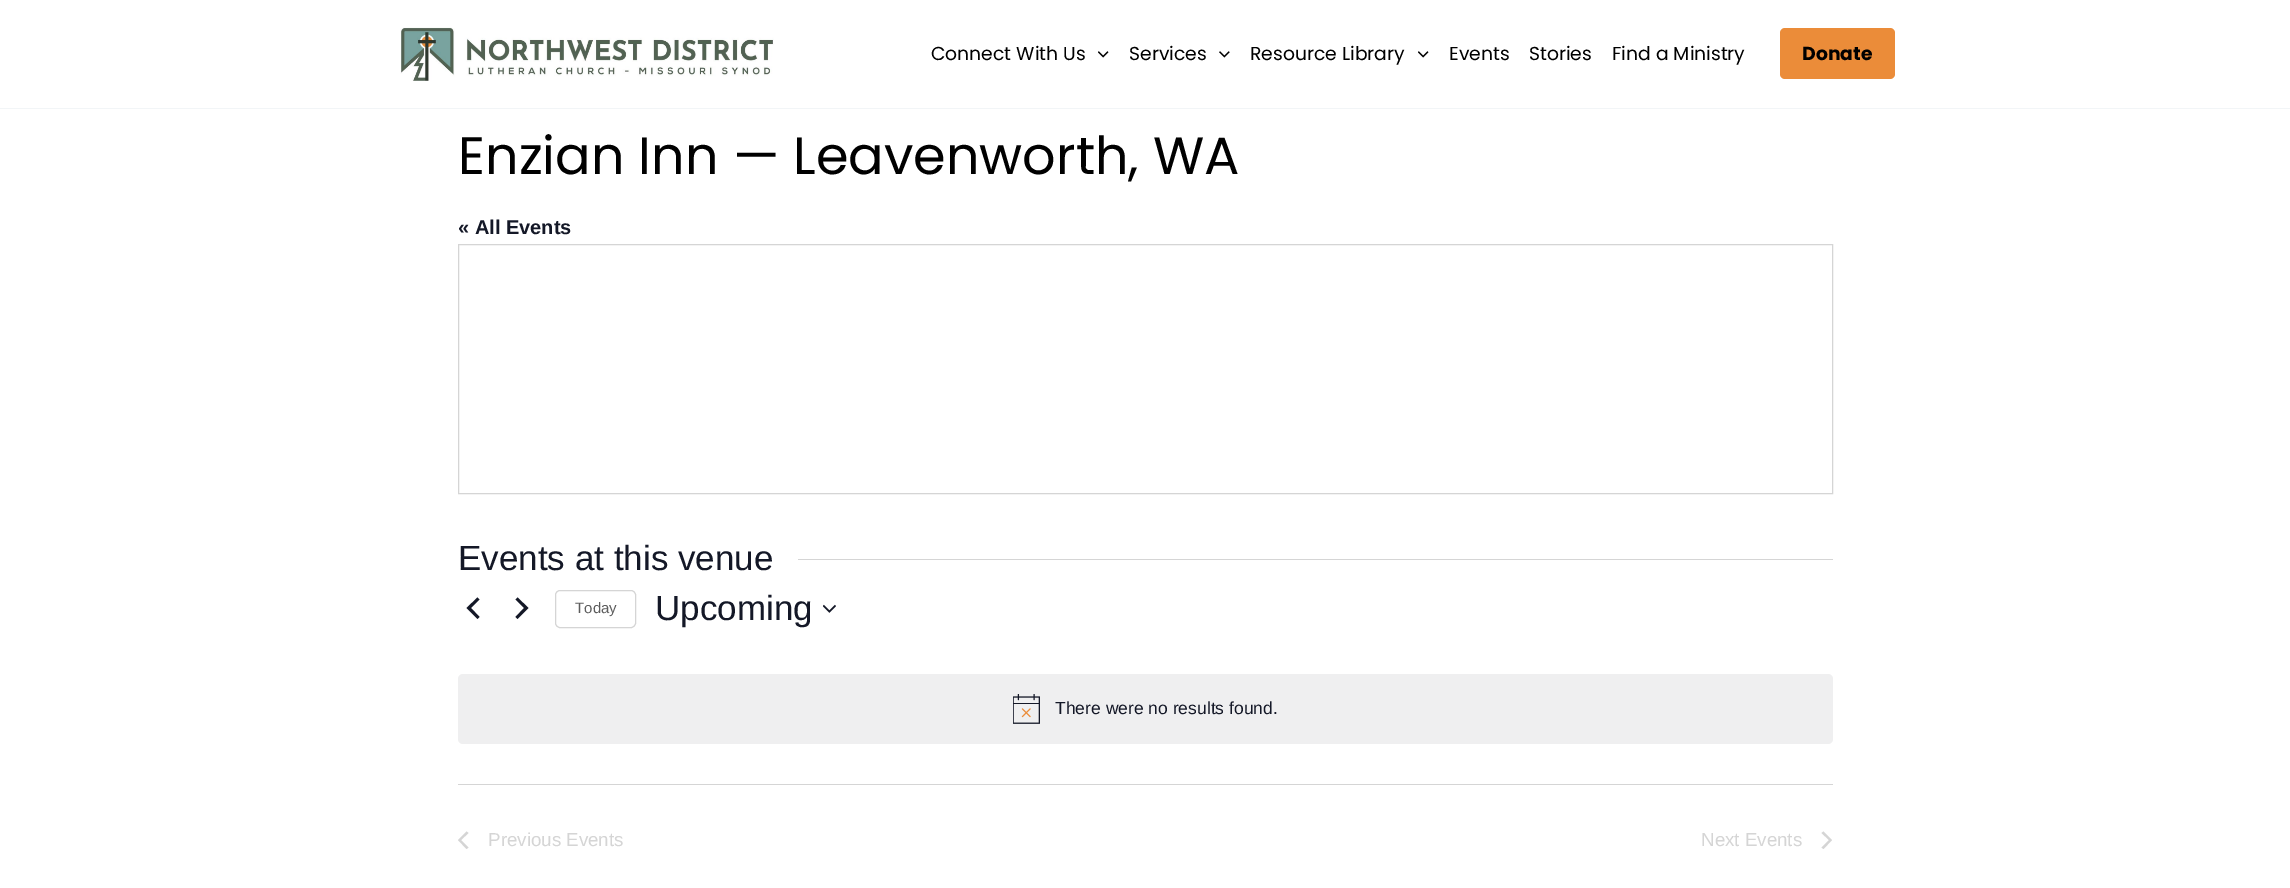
%!PS
<< /PageSize [2290 888] >> setpagedevice
/mt/moveto load def
/li/lineto load def
/cp/closepath load def
/fl/fill load def
/st/stroke load def
/co { dup -16 bitshift 255 div exch dup -8 bitshift 255 and 255 div exch 255 and 255 div setrgbcolor } def
/fn { [ exch dup neg 0 0 3 -1 roll 0 0 ] selectfont } def
/tx { co fn moveto show } def
/bx { co rectfill } def
/rr { 5 dict begin { /r /h /w /y /x } { exch def } forall
  x r add y moveto x w add y 2 copy h add r arct x w add y h add x 1 index r arct
  x y h add x y r arct x y 2 copy exch w add exch r arct closepath end } def
/im { 5 dict begin { /h /w /y /x /name } { exch def } forall
  gsave x y translate w h scale
  w h 8 [w 0 0 h 0 0] name (r) file false 3 colorimage grestore end } def
0 888 translate 1 -1 scale
4 setmiterlimit
0 0 2290 888 16#FFFFFF bx
0 108 2290 1 16#F2F5F7 bx
(media/1.raw) 400 27 374 54 im
(media/2.raw) 1098 51 11 7 im
(media/3.raw) 1219 51 11 7 im
(media/2.raw) 1418 51 11 7 im
16#EB8C39 co
1780 28 115 51 5 rr fl
16#D5D5D5 co
458.5 244.5 1374 249 rectstroke
798 559 1035 1 16#D5D5D5 bx
16#141827 co
479.5 617 mt 477.5 619 li 466.5 608 li 477.5 597.5 li 479.5 599.5 li 471 608 li cp 515.5 599.5 mt 517.5 597.5 li 528.5 608 li 517.5 619 li 515.5 617 li 524 608 li cp fl
16#D5D5D5 co
555.5 590.5 80 37 4.5 rr st
(media/4.raw) 823 604 13 9 im
16#EFEFF0 co
458 674 1375 70 5 rr fl
(media/5.raw) 1013 694 27 30 im
458 784 1375 1 16#D5D5D5 bx
468.5 847.5 mt 466.5 849 li 458 840 li 466.5 831.5 li 468.5 833 li 461 840 li cp fl
1821.5 833 mt 1823.5 831.5 li 1832 840 li 1823.5 849 li 1821.5 847.5 li 1829 840 li cp fl
(Connect With Us) 931 60 /Poppins-Regular 18.75 16#000000 tx
(Services) 1129 60 /Poppins-Regular 18.75 16#000000 tx
(Resource Library) 1250 60 /Poppins-Regular 18.75 16#000000 tx
(Events) 1449 60 /Poppins-Regular 18.75 16#000000 tx
(Stories) 1529 60 /Poppins-Regular 18.75 16#000000 tx
(Find a Ministry) 1612 60 /Poppins-Regular 18.75 16#000000 tx
(Donate) 1802 60 /Poppins-Bold 18.75 16#000000 tx
(Enzian Inn — Leavenworth, WA) 458 174 /Poppins-Regular 52.5 16#000000 tx
(« All Events) 458 234 /LiberationSans-Bold 20 16#141827 tx
(Events at this venue) 458 570 /LiberationSans-Regular 35 16#141827 tx
(Today) 575 613 /LiberationSans-Regular 15 16#5D5D5D tx
(Upcoming) 655 620 /LiberationSans-Regular 35 16#141827 tx
(There were no results found.) 1055 714 /LiberationSans-Regular 17.5 16#141827 tx
(Previous Events) 488 846 /LiberationSans-Regular 18.75 16#D5D5D5 tx
(Next Events) 1701 846 /LiberationSans-Regular 18.75 16#D5D5D5 tx
showpage
